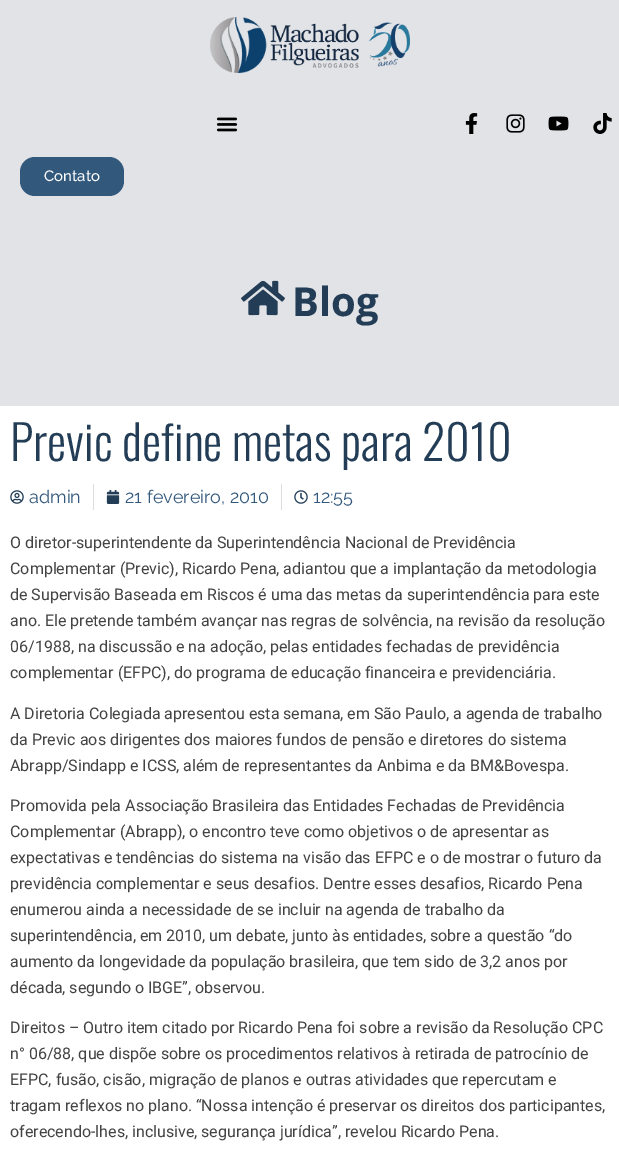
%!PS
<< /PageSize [619 1168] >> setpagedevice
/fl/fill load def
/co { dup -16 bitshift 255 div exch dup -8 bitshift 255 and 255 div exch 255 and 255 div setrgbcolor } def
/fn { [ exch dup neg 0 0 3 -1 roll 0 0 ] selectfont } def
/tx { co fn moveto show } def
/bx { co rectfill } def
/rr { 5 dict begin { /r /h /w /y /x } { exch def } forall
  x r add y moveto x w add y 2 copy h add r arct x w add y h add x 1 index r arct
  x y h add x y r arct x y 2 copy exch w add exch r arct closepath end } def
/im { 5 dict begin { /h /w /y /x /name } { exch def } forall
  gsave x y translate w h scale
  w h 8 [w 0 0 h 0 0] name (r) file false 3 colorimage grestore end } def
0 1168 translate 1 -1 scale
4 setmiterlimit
0 0 619 1168 16#FFFFFF bx
0 0 619 406 16#E1E3E6 bx
(media/1.raw) 210 17 200 56 im
(media/2.raw) 216 117 22 15 im
(media/3.raw) 465 113 13 21 im
(media/4.raw) 506 114 19 19 im
(media/5.raw) 548 116 21 15 im
(media/6.raw) 593 113 19 21 im
16#32587C co
20 157 104 39 15 rr fl
(media/7.raw) 241 280 44 36 im
(media/8.raw) 10 490 14 14 im
93 484 1 26 16#DDDDDD bx
(media/9.raw) 106 490 14 14 im
281 484 1 26 16#DDDDDD bx
(media/10.raw) 294 490 14 14 im
(Contato) 44 181 /Raleway-Medium 15 16#FFFFFF tx
(Blog) 292 316 /OpenSans-Bold 40 16#233D56 tx
(Previc define metas para 2010) 10 461 /Oswald-Light 48 16#233D56 tx
(admin) 29 503 /Raleway-Regular 18 16#32587C tx
(21 fevereiro, 2010) 125 503 /Raleway-Regular 18 16#32587C tx
(12:55) 313 503 /Raleway-Regular 18 16#32587C tx
(O diretor-superintendente da Superintendência Nacional de Previdência) 10 548 /Roboto-Regular 16 16#434343 tx
(Complementar \(Previc\), Ricardo Pena, adiantou que a implantação da metodologia) 10 574 /Roboto-Regular 16 16#434343 tx
(de Supervisão Baseada em Riscos é uma das metas da superintendência para este) 10 600 /Roboto-Regular 16 16#434343 tx
(ano. Ele pretende também avançar nas regras de solvência, na revisão da resolução) 10 626 /Roboto-Regular 16 16#434343 tx
(06/1988, na discussão e na adoção, pelas entidades fechadas de previdência) 10 652 /Roboto-Regular 16 16#434343 tx
(complementar \(EFPC\), do programa de educação financeira e previdenciária.) 10 678 /Roboto-Regular 16 16#434343 tx
(A Diretoria Colegiada apresentou esta semana, em São Paulo, a agenda de trabalho) 10 719 /Roboto-Regular 16 16#434343 tx
(da Previc aos dirigentes dos maiores fundos de pensão e diretores do sistema) 10 745 /Roboto-Regular 16 16#434343 tx
(Abrapp/Sindapp e ICSS, além de representantes da Anbima e da BM&Bovespa.) 10 771 /Roboto-Regular 16 16#434343 tx
(Promovida pela Associação Brasileira das Entidades Fechadas de Previdência) 10 811 /Roboto-Regular 16 16#434343 tx
(Complementar \(Abrapp\), o encontro teve como objetivos o de apresentar as) 10 837 /Roboto-Regular 16 16#434343 tx
(expectativas e tendências do sistema na visão das EFPC e o de mostrar o futuro da) 10 863 /Roboto-Regular 16 16#434343 tx
(previdência complementar e seus desafios. Dentre esses desafios, Ricardo Pena) 10 889 /Roboto-Regular 16 16#434343 tx
(enumerou ainda a necessidade de se incluir na agenda de trabalho da) 10 915 /Roboto-Regular 16 16#434343 tx
(superintendência, em 2010, um debate, junto às entidades, sobre a questão “do) 10 941 /Roboto-Regular 16 16#434343 tx
(aumento da longevidade da população brasileira, que tem sido de 3,2 anos por) 10 967 /Roboto-Regular 16 16#434343 tx
(década, segundo o IBGE”, observou.) 10 993 /Roboto-Regular 16 16#434343 tx
(Direitos – Outro item citado por Ricardo Pena foi sobre a revisão da Resolução CPC) 10 1033 /Roboto-Regular 16 16#434343 tx
(n° 06/88, que dispõe sobre os procedimentos relativos à retirada de patrocínio de) 10 1059 /Roboto-Regular 16 16#434343 tx
(EFPC, fusão, cisão, migração de planos e outras atividades que repercutam e) 10 1085 /Roboto-Regular 16 16#434343 tx
(tragam reflexos no plano. “Nossa intenção é preservar os direitos dos participantes,) 10 1111 /Roboto-Regular 16 16#434343 tx
(oferecendo-lhes, inclusive, segurança jurídica”, revelou Ricardo Pena.) 10 1137 /Roboto-Regular 16 16#434343 tx
showpage
